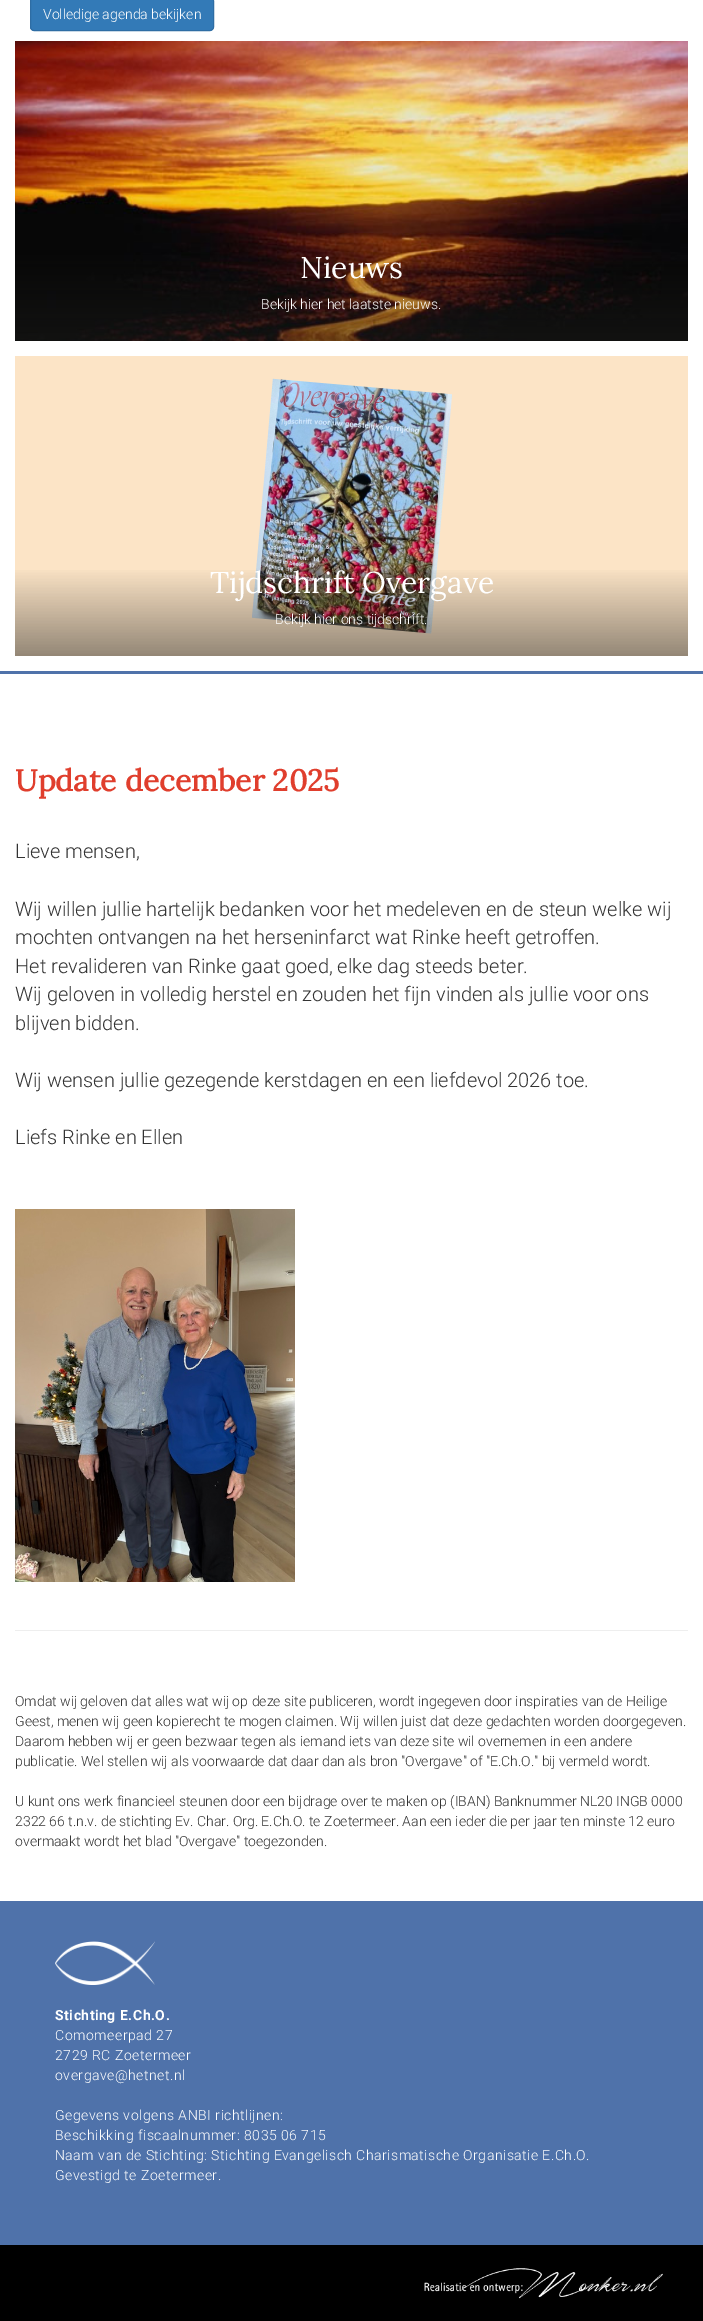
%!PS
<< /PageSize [703 2321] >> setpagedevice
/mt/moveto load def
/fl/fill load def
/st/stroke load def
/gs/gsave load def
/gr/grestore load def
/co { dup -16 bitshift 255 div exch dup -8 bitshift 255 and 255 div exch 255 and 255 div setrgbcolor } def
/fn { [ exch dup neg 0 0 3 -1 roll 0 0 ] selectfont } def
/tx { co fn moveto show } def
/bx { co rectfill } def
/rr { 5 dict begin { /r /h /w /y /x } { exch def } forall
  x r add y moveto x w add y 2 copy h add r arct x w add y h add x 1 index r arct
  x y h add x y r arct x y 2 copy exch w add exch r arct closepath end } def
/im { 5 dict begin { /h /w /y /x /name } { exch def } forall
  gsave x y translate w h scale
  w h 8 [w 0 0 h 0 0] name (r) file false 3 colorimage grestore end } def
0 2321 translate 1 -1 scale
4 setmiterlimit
0 0 703 2321 16#FFFFFF bx
0 671 703 3 16#4F72AA bx
16#337AB7 co
30.5 -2.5 183 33 3.5 rr gs fl gr
16#2E6DA4 co
st
(media/1.raw) 15 41 673 300 im
(media/2.raw) 15 255 673 86 im
15 356 673 300 16#FCE4C6 bx
(media/3.raw) 252 378 200 256 im
(media/4.raw) 15 570 673 86 im
(media/5.raw) 15 1209 280 373 im
15 1630 673 1 16#EEEEEE bx
0 1901 703 344 16#4F72AA bx
(media/6.raw) 55 1941 100 44 im
0 2245 703 76 16#000000 bx
(media/7.raw) 424 2268 239 31 im
(Volledige agenda bekijken) 43 19 /Roboto-Light 14 16#FFFFFF tx
(Nieuws) 300 278 /Lora-Regular 30 16#FFFFFF tx
(Bekijk hier het laatste nieuws.) 261 309 /Roboto-Light 14 16#FFFFFF tx
(Tijdschrift Overgave) 210 593 /Lora-Regular 30 16#FFFFFF tx
(Bekijk hier ons tijdschrift.) 275 624 /Roboto-Light 14 16#FFFFFF tx
(Update december 2025) 15 791 /Lora-Bold 30 16#E03E2D tx
(Lieve mensen,) 15 858 /Roboto-Light 20 16#333333 tx
(Wij willen jullie hartelijk bedanken voor het medeleven en de steun welke wij) 15 916 /Roboto-Light 20 16#333333 tx
(mochten ontvangen na het herseninfarct wat Rinke heeft getroffen.) 15 944 /Roboto-Light 20 16#333333 tx
(Het revalideren van Rinke gaat goed, elke dag steeds beter.) 15 973 /Roboto-Light 20 16#333333 tx
(Wij geloven in volledig herstel en zouden het fijn vinden als jullie voor ons) 15 1001 /Roboto-Light 20 16#333333 tx
(blijven bidden.) 15 1030 /Roboto-Light 20 16#333333 tx
(Wij wensen jullie gezegende kerstdagen en een liefdevol 2026 toe.) 15 1087 /Roboto-Light 20 16#333333 tx
(Liefs Rinke en Ellen) 15 1144 /Roboto-Light 20 16#333333 tx
(Omdat wij geloven dat alles wat wij op deze site publiceren, wordt ingegeven door inspiraties van de Heilige) 15 1706 /Roboto-Light 14 16#333333 tx
(Geest, menen wij geen kopierecht te mogen claimen. Wij willen juist dat deze gedachten worden doorgegeven.) 15 1726 /Roboto-Light 14 16#333333 tx
(Daarom hebben wij er geen bezwaar tegen als iemand iets van deze site wil overnemen in een andere) 15 1746 /Roboto-Light 14 16#333333 tx
(publicatie. Wel stellen wij als voorwaarde dat daar dan als bron "Overgave" of "E.Ch.O." bij vermeld wordt.) 15 1766 /Roboto-Light 14 16#333333 tx
(U kunt ons werk financieel steunen door een bijdrage over te maken op \(IBAN\) Banknummer NL20 INGB 0000) 15 1806 /Roboto-Light 14 16#333333 tx
(2322 66 t.n.v. de stichting Ev. Char. Org. E.Ch.O. te Zoetermeer. Aan een ieder die per jaar ten minste 12 euro) 15 1826 /Roboto-Light 14 16#333333 tx
(overmaakt wordt het blad "Overgave" toegezonden.) 15 1846 /Roboto-Light 14 16#333333 tx
/Roboto-Bold 14 fn
16#FFFFFF co
55 2020 mt .5 0 (Stichting E.Ch.O.) ashow
/Roboto-Light 14 fn
55 2040 mt .5 0 (Comomeerpad 27) ashow
55 2060 mt .5 0 (2729 RC Zoetermeer) ashow
55 2080 mt .5 0 (overgave@hetnet.nl) ashow
55 2120 mt .5 0 (Gegevens volgens ANBI richtlijnen:) ashow
55 2140 mt .5 0 (Beschikking fiscaalnummer: 8035 06 715) ashow
55 2160 mt .5 0 (Naam van de Stichting: Stichting Evangelisch Charismatische Organisatie E.Ch.O.) ashow
55 2180 mt .5 0 (Gevestigd te Zoetermeer.) ashow
showpage
